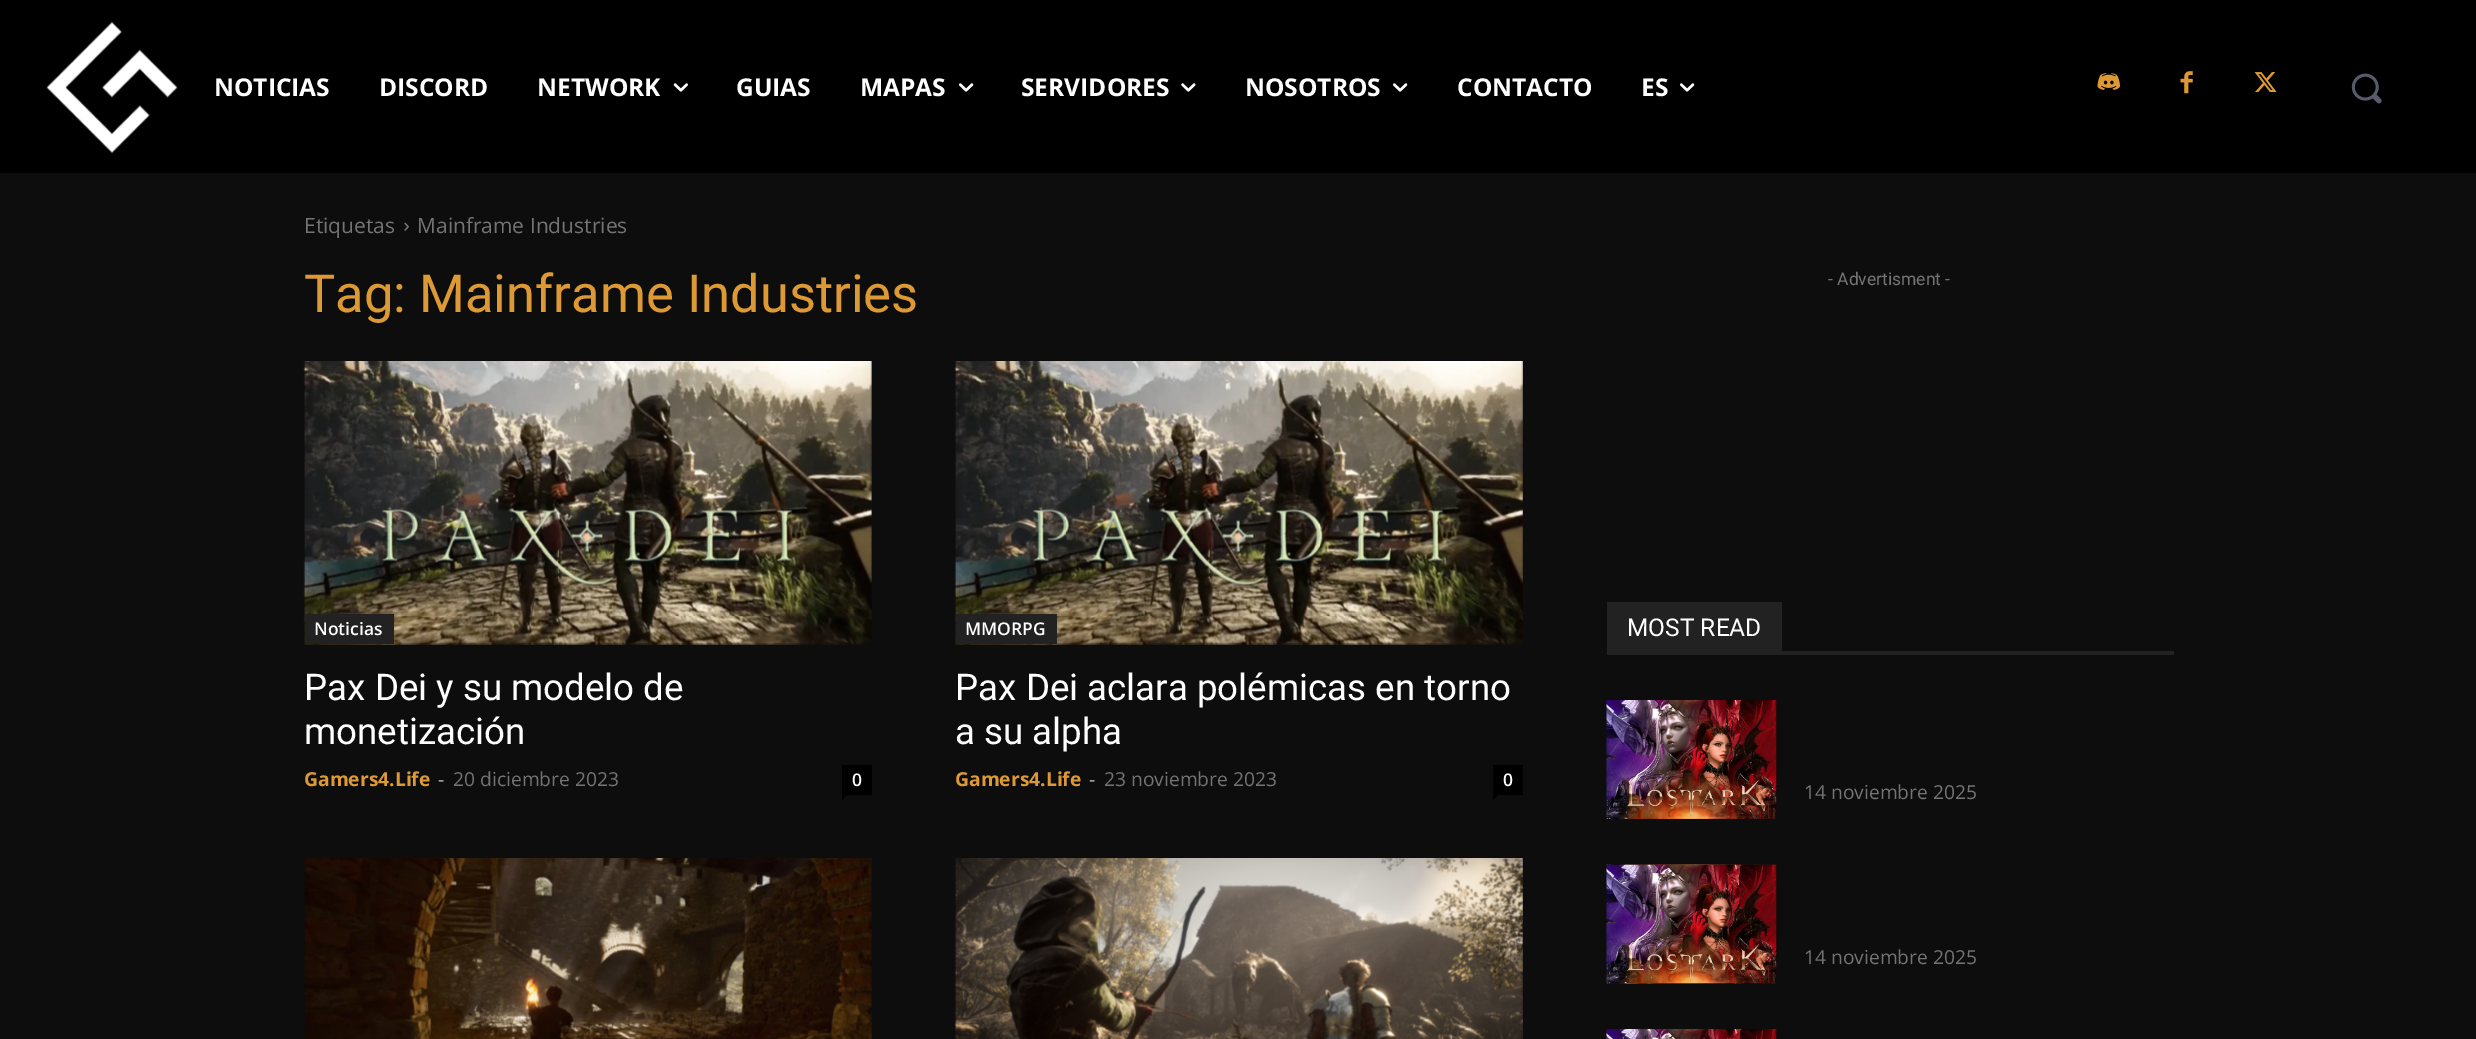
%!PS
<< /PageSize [2476 1039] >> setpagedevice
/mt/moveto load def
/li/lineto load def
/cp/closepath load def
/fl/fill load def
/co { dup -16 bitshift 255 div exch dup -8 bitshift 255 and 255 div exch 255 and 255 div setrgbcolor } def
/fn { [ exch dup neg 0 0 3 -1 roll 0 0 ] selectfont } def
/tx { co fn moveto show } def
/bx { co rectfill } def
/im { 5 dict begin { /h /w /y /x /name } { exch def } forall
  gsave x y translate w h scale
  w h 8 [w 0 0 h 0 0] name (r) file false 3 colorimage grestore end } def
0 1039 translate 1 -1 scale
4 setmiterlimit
0 0 2476 1039 16#0D0D0D bx
0 0 2476 173 16#000000 bx
(media/1.raw) 46 21 132 133 im
(media/2.raw) 673 83 15 9 im
(media/3.raw) 959 83 15 9 im
(media/4.raw) 1181 83 15 9 im
(media/3.raw) 1393 83 15 9 im
(media/3.raw) 1680 83 15 9 im
(media/5.raw) 2097 73 23 17 im
(media/6.raw) 2180 71 13 23 im
(media/7.raw) 2254 72 23 20 im
(media/8.raw) 2351 73 31 31 im
(media/9.raw) 404 222 5 9 im
(media/10.raw) 303 361 569 284 im
305 614 89 30 16#222222 bx
842 765 30 30 16#000000 bx
842 794.5 mt 847 794.5 li 842 800 li cp fl
(media/11.raw) 954 361 569 284 im
956 614 101 30 16#222222 bx
1493 765 30 30 16#000000 bx
1493 794.5 mt 1498 794.5 li 1493 800 li cp fl
(media/12.raw) 304 858 568 181 im
(media/13.raw) 954 858 569 181 im
1607 651 567 4 16#222222 bx
1607 602 175 49 16#222222 bx
(media/14.raw) 1606 700 171 119 im
(media/15.raw) 1606 864 171 120 im
(media/16.raw) 1606 1029 171 10 im
(NOTICIAS) 214 96 /OpenSans-Bold 24.5 16#FFFFFF tx
(DISCORD) 379 96 /OpenSans-Bold 24.5 16#FFFFFF tx
(NETWORK) 537 96 /OpenSans-Bold 24.5 16#FFFFFF tx
(GUIAS) 736 96 /OpenSans-Bold 24.5 16#FFFFFF tx
(MAPAS) 860 96 /OpenSans-Bold 24.5 16#FFFFFF tx
(SERVIDORES) 1021 96 /OpenSans-Bold 24.5 16#FFFFFF tx
(NOSOTROS) 1245 96 /OpenSans-Bold 24.5 16#FFFFFF tx
(CONTACTO) 1457 96 /OpenSans-Bold 24.5 16#FFFFFF tx
(ES) 1641 96 /OpenSans-Bold 24.5 16#FFFFFF tx
(Etiquetas) 304 233 /OpenSans-Regular 21 16#747474 tx
(Mainframe Industries) 417 233 /OpenSans-Regular 21 16#747474 tx
(Tag: Mainframe Industries) 304 312 /Roboto-Regular 52.5 16#DD9933 tx
(Noticias) 314 635 /OpenSans-SemiBold 17.5 16#FFFFFF tx
(Pax Dei y su modelo de) 304 700 /Roboto-Regular 36.75 16#FFFFFF tx
(monetización) 304 744 /Roboto-Regular 36.75 16#FFFFFF tx
(Gamers4.Life) 304 786 /OpenSans-Bold 19.25 16#DD9933 tx
(-) 438 786 /OpenSans-Regular 19.25 16#CCCCCC tx
(20 diciembre 2023) 453 786 /OpenSans-Regular 19.25 16#747474 tx
(0) 852 786 /OpenSans-SemiBold 17.5 16#FFFFFF tx
(MMORPG) 965 635 /OpenSans-SemiBold 17.5 16#FFFFFF tx
(Pax Dei aclara polémicas en torno) 955 700 /Roboto-Regular 36.75 16#FFFFFF tx
(a su alpha) 955 744 /Roboto-Regular 36.75 16#FFFFFF tx
(Gamers4.Life) 955 786 /OpenSans-Bold 19.25 16#DD9933 tx
(-) 1089 786 /OpenSans-Regular 19.25 16#CCCCCC tx
(23 noviembre 2023) 1104 786 /OpenSans-Regular 19.25 16#747474 tx
(0) 1503 786 /OpenSans-SemiBold 17.5 16#FFFFFF tx
(- Advertisment -) 1828 285 /Roboto-Regular 17.5 16#747474 tx
(MOST READ) 1627 636 /Roboto-Regular 24.5 16#FFFFFF tx
(14 noviembre 2025) 1804 799 /OpenSans-Regular 19.25 16#747474 tx
(14 noviembre 2025) 1804 964 /OpenSans-Regular 19.25 16#747474 tx
showpage
